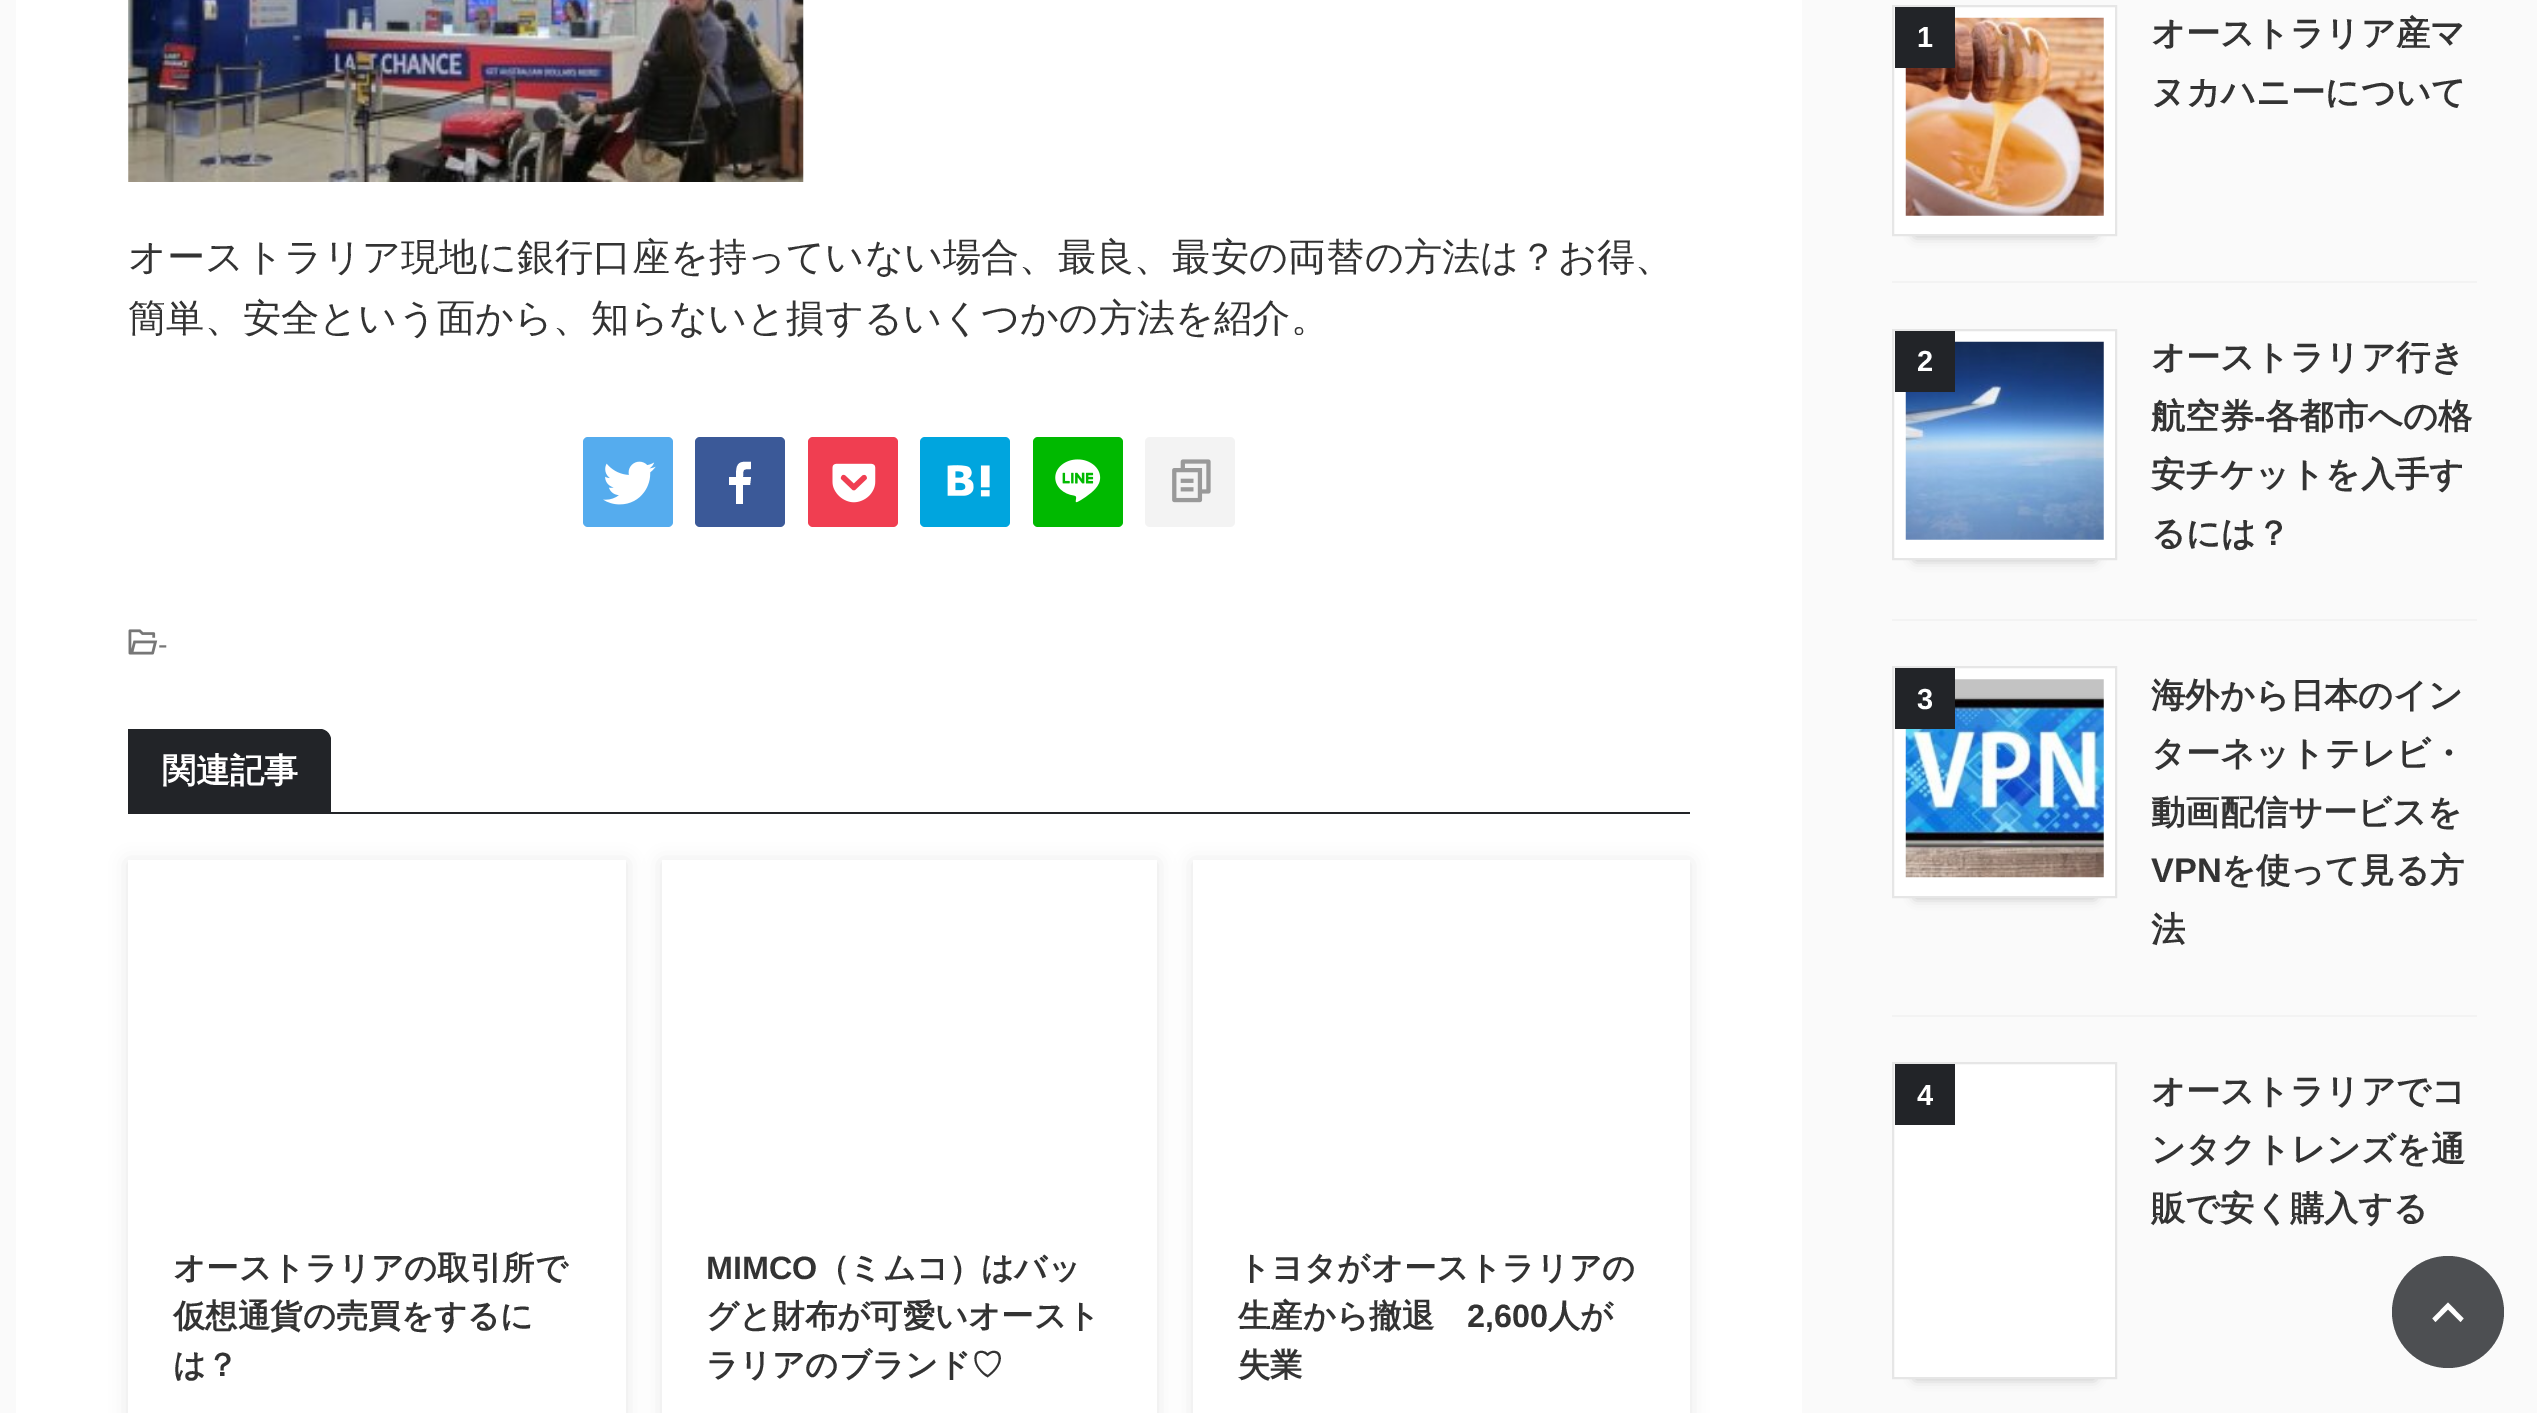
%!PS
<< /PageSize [2537 1413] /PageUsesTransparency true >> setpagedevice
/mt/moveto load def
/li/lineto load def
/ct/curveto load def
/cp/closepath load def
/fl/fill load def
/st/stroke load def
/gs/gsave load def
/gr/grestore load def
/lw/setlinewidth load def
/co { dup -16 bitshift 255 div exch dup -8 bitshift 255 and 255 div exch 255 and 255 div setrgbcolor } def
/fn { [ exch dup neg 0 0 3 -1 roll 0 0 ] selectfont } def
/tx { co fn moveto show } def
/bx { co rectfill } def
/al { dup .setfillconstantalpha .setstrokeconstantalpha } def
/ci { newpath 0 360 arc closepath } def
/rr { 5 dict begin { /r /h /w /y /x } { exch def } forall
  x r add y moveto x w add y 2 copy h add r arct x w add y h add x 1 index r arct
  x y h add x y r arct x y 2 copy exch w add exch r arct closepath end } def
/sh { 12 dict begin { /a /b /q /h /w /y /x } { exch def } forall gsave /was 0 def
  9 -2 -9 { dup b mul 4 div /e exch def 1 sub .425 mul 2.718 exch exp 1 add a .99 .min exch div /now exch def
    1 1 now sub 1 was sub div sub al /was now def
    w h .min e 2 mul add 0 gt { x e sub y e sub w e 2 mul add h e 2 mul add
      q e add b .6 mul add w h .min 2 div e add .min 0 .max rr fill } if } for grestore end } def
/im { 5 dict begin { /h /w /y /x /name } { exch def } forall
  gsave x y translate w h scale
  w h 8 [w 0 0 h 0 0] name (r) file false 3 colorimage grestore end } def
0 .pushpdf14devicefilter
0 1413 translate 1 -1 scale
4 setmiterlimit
0 0 2537 1413 16#FAFAFA bx
16 0 1786 1413 16#FFFFFF bx
(media/1.raw) 128 0 676 182 im
16#55ACEE co
583 437 90 90 5 rr fl
(media/2.raw) 603 461 53 44 im
16#3B5998 co
695 437 90 90 5 rr fl
16#FFFFFF co
743 504 mt 743 485 li 750 485 li 751 477 li 743 477 li 743 469 743 469 751 469 ct 751 462 li 738 461 736 463 736 477 ct 729 477 li 729 485 li 736 485 li 736 504 li cp fl
16#F03E51 co
808 437 90 90 5 rr fl
(media/3.raw) 832 463 44 40 im
16#00A5DE co
920 437 90 90 5 rr fl
(media/4.raw) 947 465 43 32 im
16#00B900 co
1033 437 90 90 5 rr fl
(media/5.raw) 1055 459 46 44 im
16#F3F3F3 co
1145 437 90 90 5 rr fl
(media/6.raw) 1172 459 39 44 im
(media/7.raw) 128 629 30 26 im
128 812 1562 2 16#222428 bx
128 729 mt 320 729 li 326 729 331 734 331 740 ct 331 812 li 128 812 li cp fl
16#000000 co
128 862 498 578 0 9 .1 sh
128 860 498 553 16#FFFFFF bx
16#000000 co
662 862 495 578 0 9 .1 sh
662 860 495 553 16#FFFFFF bx
16#000000 co
1193 862 497 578 0 9 .1 sh
1193 860 497 553 16#FFFFFF bx
1892 281 585 2 16#F3F3F3 bx
16#BEBEBE co
1915 50 180 186 0 5.5 1 sh
16#FFFFFF co
1893 6 mt 2116 6 li 2116 235 li 1893 235 li cp gs fl gr
16#E6E6E6 co
2 lw
st
(media/8.raw) 1905 17 199 199 im
1895 7 60 61 16#222428 bx
1892 619 585 2 16#F3F3F3 bx
16#BEBEBE co
1915 374 180 186 0 5.5 1 sh
16#FFFFFF co
1893 330 mt 2116 330 li 2116 559 li 1893 559 li cp gs fl gr
16#E6E6E6 co
st
(media/9.raw) 1905 341 199 199 im
1895 331 60 61 16#222428 bx
1892 1015 585 2 16#F3F3F3 bx
16#BEBEBE co
1915 711 180 187 0 5.5 1 sh
16#FFFFFF co
1893 667 mt 2116 667 li 2116 897 li 1893 897 li cp gs fl gr
16#E6E6E6 co
st
(media/10.raw) 1905 679 199 199 im
1895 668 60 61 16#222428 bx
16#BEBEBE co
1915 1107 180 272 0 5.5 1 sh
16#FFFFFF co
1893 1063 mt 2116 1063 li 2116 1378 li 1893 1378 li cp gs fl gr
16#E6E6E6 co
st
1895 1064 60 61 16#222428 bx
16#4D4F52 co
2448 1312 56 ci fl
16#FEFEFE co
2448 1309.5 mt 2435.5 1322 li 2432.5 1318.5 li 2448 1302.5 li 2463.5 1318.5 li 2460.5 1322 li cp fl
(オーストラリア現地に銀行口座を持っていない場合、最良、最安の両替の方法は？お得、) 128 270 /WenQuanYiZenHei-Medium 38.25 16#333333 tx
(簡単、安全という面から、知らないと損するいくつかの方法を紹介。) 128 331 /WenQuanYiZenHei-Medium 38.25 16#333333 tx
(-) 158 654 /LiberationSans-Regular 29 16#777777 tx
(関連記事) 162 782 /WenQuanYiZenHei-Bold 34 16#FFFFFF tx
(オーストラリアの取引所で) 173 1279 /WenQuanYiZenHei-Bold 32.4 16#333333 tx
(仮想通貨の売買をするに) 173 1327 /WenQuanYiZenHei-Bold 32.4 16#333333 tx
(は？) 173 1376 /WenQuanYiZenHei-Bold 32.4 16#333333 tx
(MIMCO) 706 1279 /LiberationSans-Bold 32.4 16#333333 tx
(（ミムコ）はバッ) 817 1279 /WenQuanYiZenHei-Bold 32.4 16#333333 tx
(グと財布が可愛いオースト) 706 1327 /WenQuanYiZenHei-Bold 32.4 16#333333 tx
(ラリアのブランド♡) 706 1376 /WenQuanYiZenHei-Bold 32.4 16#333333 tx
(トヨタがオーストラリアの) 1238 1279 /WenQuanYiZenHei-Bold 32.4 16#333333 tx
(生産から撤退) 1238 1327 /WenQuanYiZenHei-Bold 32.4 16#333333 tx
(2,600) 1467 1327 /LiberationSans-Bold 32.4 16#333333 tx
(人が) 1548 1327 /WenQuanYiZenHei-Bold 32.4 16#333333 tx
(失業) 1238 1376 /WenQuanYiZenHei-Bold 32.4 16#333333 tx
(1) 1917 47 /LiberationSans-Bold 29 16#FFFFFF tx
(オーストラリア産マ) 2151 45 /WenQuanYiZenHei-Bold 34.25 16#333333 tx
(ヌカハニーについて) 2151 104 /WenQuanYiZenHei-Bold 34.25 16#333333 tx
(2) 1917 371 /LiberationSans-Bold 29 16#FFFFFF tx
(オーストラリア行き) 2151 369 /WenQuanYiZenHei-Bold 34.25 16#333333 tx
(航空券) 2151 428 /WenQuanYiZenHei-Bold 34.25 16#333333 tx
(-) 2254 428 /LiberationSans-Bold 34.25 16#333333 tx
(各都市への格) 2265 428 /WenQuanYiZenHei-Bold 34.25 16#333333 tx
(安チケットを入手す) 2151 486 /WenQuanYiZenHei-Bold 34.25 16#333333 tx
(るには？) 2151 545 /WenQuanYiZenHei-Bold 34.25 16#333333 tx
(3) 1917 709 /LiberationSans-Bold 29 16#FFFFFF tx
(海外から日本のイン) 2151 707 /WenQuanYiZenHei-Bold 34.25 16#333333 tx
(ターネットテレビ・) 2151 765 /WenQuanYiZenHei-Bold 34.25 16#333333 tx
(動画配信サービスを) 2151 824 /WenQuanYiZenHei-Bold 34.25 16#333333 tx
(VPN) 2151 882 /LiberationSans-Bold 34.25 16#333333 tx
(を使って見る方) 2221 882 /WenQuanYiZenHei-Bold 34.25 16#333333 tx
(法) 2151 941 /WenQuanYiZenHei-Bold 34.25 16#333333 tx
(4) 1917 1105 /LiberationSans-Bold 29 16#FFFFFF tx
(オーストラリアでコ) 2151 1103 /WenQuanYiZenHei-Bold 34.25 16#333333 tx
(ンタクトレンズを通) 2151 1161 /WenQuanYiZenHei-Bold 34.25 16#333333 tx
(販で安く購入する) 2151 1220 /WenQuanYiZenHei-Bold 34.25 16#333333 tx
.poppdf14devicefilter showpage
